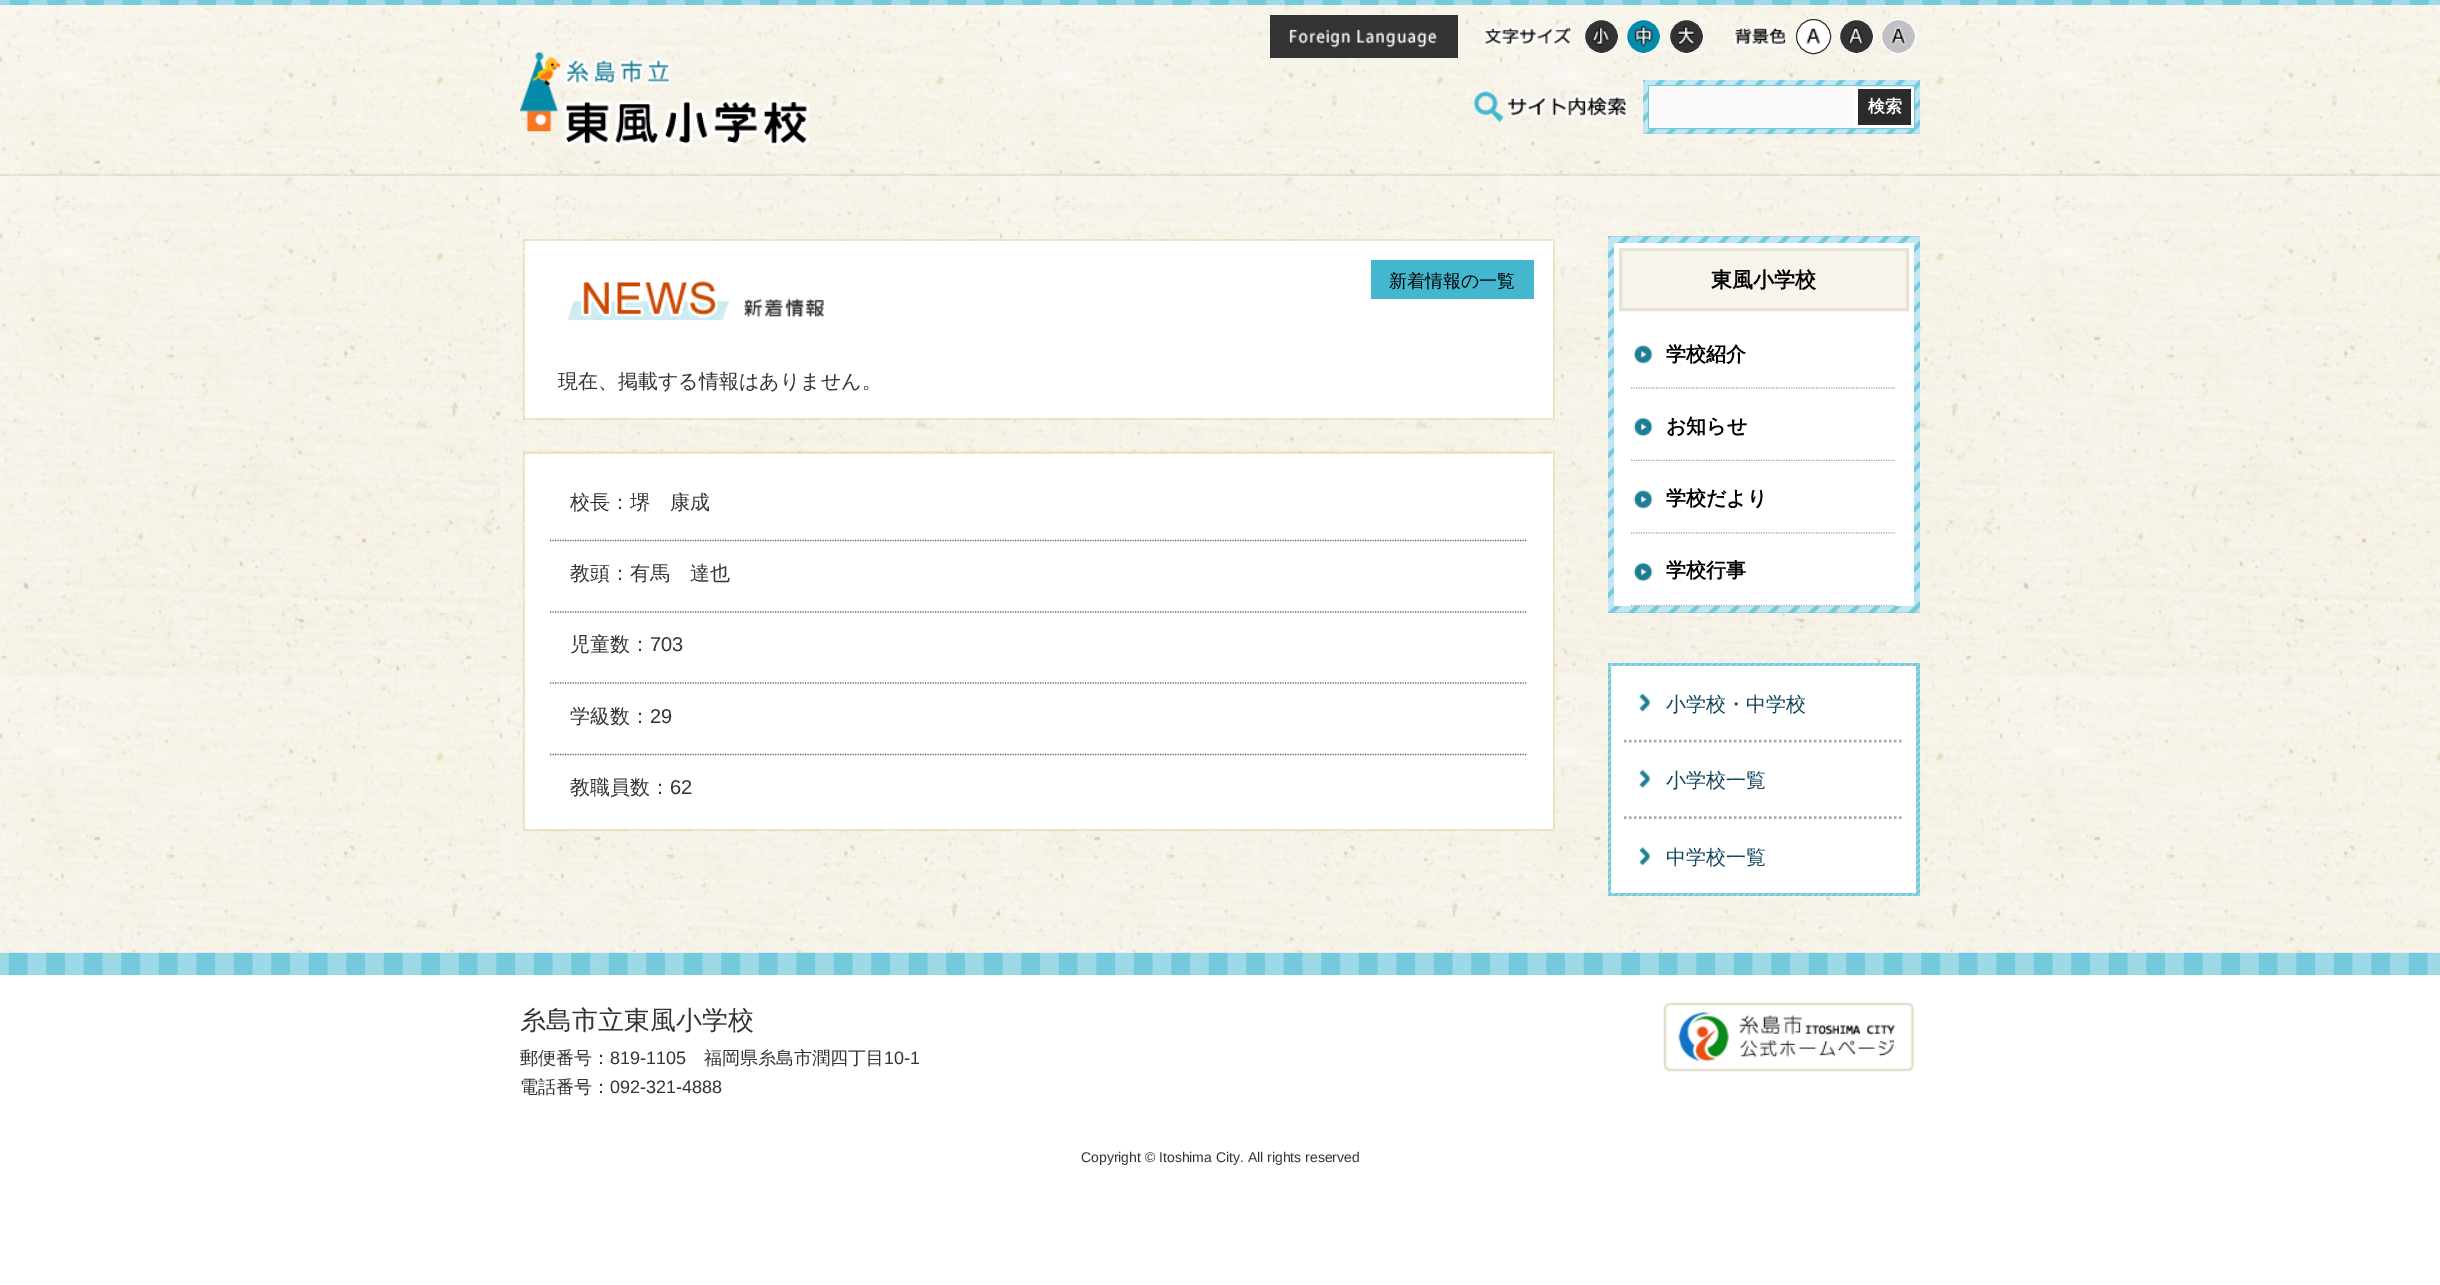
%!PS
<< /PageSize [2440 1285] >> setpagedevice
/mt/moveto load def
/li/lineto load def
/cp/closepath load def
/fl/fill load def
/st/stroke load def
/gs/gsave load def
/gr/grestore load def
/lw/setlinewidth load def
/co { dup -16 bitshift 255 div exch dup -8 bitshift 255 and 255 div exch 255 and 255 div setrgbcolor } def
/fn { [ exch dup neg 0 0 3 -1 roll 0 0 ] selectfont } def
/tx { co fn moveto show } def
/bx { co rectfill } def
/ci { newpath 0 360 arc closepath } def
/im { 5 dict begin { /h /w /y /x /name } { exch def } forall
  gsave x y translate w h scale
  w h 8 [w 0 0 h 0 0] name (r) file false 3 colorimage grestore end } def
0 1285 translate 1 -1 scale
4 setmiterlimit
0 0 2440 1285 16#FFFFFF bx
0 176 2440 777 16#FFFDF7 bx
(media/18.raw) 0 176 2440 777 im
(media/1.raw) 0 5 2440 172 im
(media/2.raw) 0 0 2440 5 im
(media/3.raw) 520 52 41 80 im
(media/4.raw) 564 57 108 28 im
(media/5.raw) 562 98 248 49 im
1270 15 188 43 16#333333 bx
(media/6.raw) 1289 29 148 19 im
(media/7.raw) 1483 25 90 22 im
1601.5 36.5 17 ci gs fl gr
16#FFFFFF co
st
(media/8.raw) 1592 26 18 20 im
16#068AA9 co
1643.5 36.5 17 ci gs fl gr
16#FFFFFF co
st
(media/9.raw) 1634 26 19 21 im
16#333333 co
1686.5 36.5 17 ci gs fl gr
16#FFFFFF co
st
(media/10.raw) 1676 26 19 20 im
(media/11.raw) 1733 26 55 21 im
1813.5 36.5 17 ci gs fl gr
16#333333 co
st
(media/12.raw) 1806 28 15 16 im
1856.5 36.5 17 ci gs fl gr
16#FFFFFF co
st
(media/13.raw) 1847 27 17 18 im
16#C0C0C5 co
1898.5 36.5 17 ci gs fl gr
16#FFFFFF co
st
(media/14.raw) 1890 27 17 18 im
(media/15.raw) 1473 91 155 32 im
1643 80 277 54 16#74CADC bx
(media/16.raw) 1642 80 278 54 im
1855 86 59 42 16#FFFFFF bx
16#74CADC co
1648.5 85.5 266 43 rectstroke
1649 86 206 42 16#FAFAFA bx
1858 89 53 36 16#2B2B2B bx
(media/17.raw) 0 173 2440 3 im
(media/19.raw) 522 239 1033 181 im
525 241 1028 177 16#FFFFFF bx
(media/20.raw) 567 281 257 40 im
1371 260 163 39 16#44B7CF bx
(media/21.raw) 522 451 1033 381 im
525 454 1028 375 16#FFFFFF bx
16#666666 co
1.2 lw
[1.25 1.25] 0 setdash
550 540.5 mt 1527.5 540.5 li st
550 612 mt 1527.5 612 li st
550 683 mt 1527.5 683 li st
550 754.5 mt 1527.5 754.5 li st
1608 236 312 377 16#74CADC bx
(media/22.raw) 1608 236 312 377 im
1614 243 300 218 16#FFFFFF bx
16#F8F4EB co
1620.5 249.5 mt 1907.5 249.5 li 1907.5 309.5 li 1620.5 309.5 li cp gs fl gr
16#E8E4D3 co
3 lw
[] 0 setdash
st
(media/23.raw) 1633 345 20 19 im
16#AAAAAA co
1.2 lw
[1.25 1.25] 0 setdash
1631 388 mt 1896 388 li st
(media/24.raw) 1633 417 20 20 im
1631 460.5 mt 1896 460.5 li st
1614 461 300 145 16#FFFFFF bx
(media/23.raw) 1633 490 20 19 im
16#AAAAAA co
1631 533 mt 1896 533 li st
(media/24.raw) 1633 562 20 20 im
1631 605.5 mt 1896 605.5 li st
1608 663 312 233 16#74CADC bx
(media/25.raw) 1608 662 312 234 im
1611 666 305 227 16#FFFFFF bx
(media/26.raw) 1638 693 13 19 im
(media/27.raw) 1638 769 13 19 im
16#AAAAAA co
2.5 lw
[2.5 2.5] 0 setdash
1624 741 mt 1904 741 li st
(media/28.raw) 1638 847 13 19 im
1624 817.5 mt 1904 817.5 li st
(media/29.raw) 0 952 2440 23 im
(media/30.raw) 1663 1002 251 70 im
(検索) 1868 112 /WenQuanYiZenHei-Bold 17 16#FFFFFF tx
(新着情報の一覧) 1389 287 /WenQuanYiZenHei-Medium 18 16#000000 tx
(現在、掲載する情報はありません。) 558 388 /WenQuanYiZenHei-Medium 20 16#333333 tx
(校長：堺　康成) 570 509 /WenQuanYiZenHei-Medium 20 16#333333 tx
(教頭：有馬　達也) 570 580 /WenQuanYiZenHei-Medium 20 16#333333 tx
(児童数：) 570 651 /WenQuanYiZenHei-Medium 20 16#333333 tx
(703) 650 651 /LiberationSans-Regular 20 16#333333 tx
(学級数：) 570 723 /WenQuanYiZenHei-Medium 20 16#333333 tx
(29) 650 723 /LiberationSans-Regular 20 16#333333 tx
(教職員数：) 570 794 /WenQuanYiZenHei-Medium 20 16#333333 tx
(62) 670 794 /LiberationSans-Regular 20 16#333333 tx
(東風小学校) 1711 287 /WenQuanYiZenHei-Bold 21 16#000000 tx
(学校紹介) 1666 361 /WenQuanYiZenHei-Bold 20 16#000000 tx
(お知らせ) 1666 433 /WenQuanYiZenHei-Bold 20 16#000000 tx
(学校だより) 1666 505 /WenQuanYiZenHei-Bold 20 16#000000 tx
(学校行事) 1666 577 /WenQuanYiZenHei-Bold 20 16#000000 tx
(小学校・中学校) 1666 711 /WenQuanYiZenHei-Medium 20 16#14465F tx
(小学校一覧) 1666 787 /WenQuanYiZenHei-Medium 20 16#14465F tx
(中学校一覧) 1666 864 /WenQuanYiZenHei-Medium 20 16#14465F tx
(糸島市立東風小学校) 520 1029 /WenQuanYiZenHei-Medium 26 16#333333 tx
(郵便番号：) 520 1064 /WenQuanYiZenHei-Medium 18 16#333333 tx
(819-1105) 610 1064 /LiberationSans-Regular 18 16#333333 tx
(福岡県糸島市潤四丁目) 704 1064 /WenQuanYiZenHei-Medium 18 16#333333 tx
(10-1) 884 1064 /LiberationSans-Regular 18 16#333333 tx
(電話番号：) 520 1093 /WenQuanYiZenHei-Medium 18 16#333333 tx
(092-321-4888) 610 1093 /LiberationSans-Regular 18 16#333333 tx
(Copyright © Itoshima City. All rights reserved) 1081 1162 /LiberationSans-Regular 14 16#333333 tx
showpage
